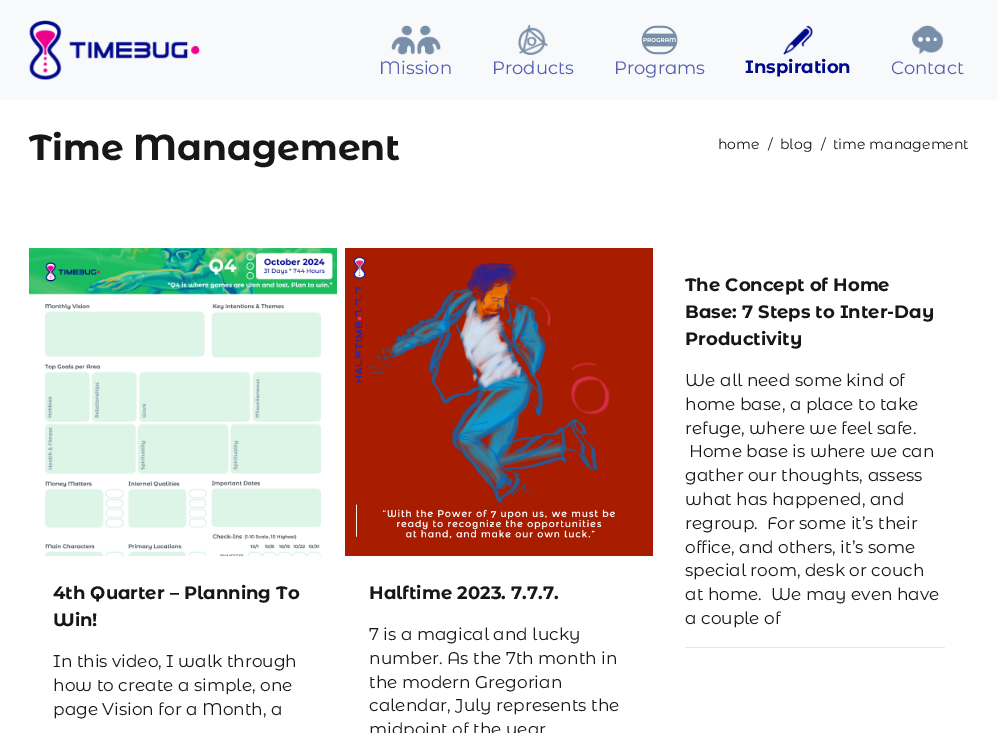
%!PS
<< /PageSize [997 733] >> setpagedevice
/co { dup -16 bitshift 255 div exch dup -8 bitshift 255 and 255 div exch 255 and 255 div setrgbcolor } def
/fn { [ exch dup neg 0 0 3 -1 roll 0 0 ] selectfont } def
/tx { co fn moveto show } def
/bx { co rectfill } def
/im { 5 dict begin { /h /w /y /x /name } { exch def } forall
  gsave x y translate w h scale
  w h 8 [w 0 0 h 0 0] name (r) file false 3 colorimage grestore end } def
0 733 translate 1 -1 scale
4 setmiterlimit
0 0 997 733 16#FFFFFF bx
0 0 997 100 16#F8F9FB bx
(media/1.raw) 29 20 171 60 im
(media/2.raw) 391 25 50 30 im
(media/3.raw) 518 25 30 30 im
(media/4.raw) 641 25 37 30 im
(media/5.raw) 783 25 30 30 im
(media/6.raw) 912 25 32 30 im
685 647 260 1 16#E6E6E6 bx
(media/7.raw) 29 248 308 308 im
(media/8.raw) 345 248 308 308 im
(Mission) 379 74 /MontserratAlternates-Regular 18 16#575EB2 tx
(Products) 492 74 /MontserratAlternates-Regular 18 16#575EB2 tx
(Programs) 614 74 /MontserratAlternates-Regular 18 16#575EB2 tx
(Inspiration) 745 73 /MontserratAlternates-Bold 18 16#000A8B tx
(Contact) 891 74 /MontserratAlternates-Regular 18 16#575EB2 tx
(Time Management) 29 160 /MontserratAlternates-Bold 36 16#151718 tx
(home) 718 149 /MontserratAlternates-Regular 14 16#151718 tx
(/) 768 149 /MontserratAlternates-Regular 14 16#151718 tx
(blog) 780 149 /MontserratAlternates-Regular 14 16#151718 tx
(/) 821 149 /MontserratAlternates-Regular 14 16#151718 tx
(time management) 833 149 /MontserratAlternates-Regular 14 16#151718 tx
(The Concept of Home) 685 291 /MontserratAlternates-Bold 18 16#151718 tx
(Base: 7 Steps to Inter-Day) 685 318 /MontserratAlternates-Bold 18 16#151718 tx
(Productivity) 685 345 /MontserratAlternates-Bold 18 16#151718 tx
(We all need some kind of) 685 386 /MontserratAlternates-Regular 17 16#151718 tx
(home base, a place to take) 685 410 /MontserratAlternates-Regular 17 16#151718 tx
(refuge, where we feel safe.) 685 434 /MontserratAlternates-Regular 17 16#151718 tx
(Home base is where we can) 689 457 /MontserratAlternates-Regular 17 16#151718 tx
(gather our thoughts, assess) 685 481 /MontserratAlternates-Regular 17 16#151718 tx
(what has happened, and) 685 505 /MontserratAlternates-Regular 17 16#151718 tx
(regroup.  For some it’s their) 685 529 /MontserratAlternates-Regular 17 16#151718 tx
(office, and others, it’s some) 685 553 /MontserratAlternates-Regular 17 16#151718 tx
(special room, desk or couch) 685 576 /MontserratAlternates-Regular 17 16#151718 tx
(at home.  We may even have) 685 600 /MontserratAlternates-Regular 17 16#151718 tx
(a couple of) 685 624 /MontserratAlternates-Regular 17 16#151718 tx
(4th Quarter – Planning To) 53 599 /MontserratAlternates-Bold 18 16#151718 tx
(Win!) 53 626 /MontserratAlternates-Bold 18 16#151718 tx
(In this video, I walk through) 53 667 /MontserratAlternates-Regular 17 16#151718 tx
(how to create a simple, one) 53 691 /MontserratAlternates-Regular 17 16#151718 tx
(page Vision for a Month, a) 53 715 /MontserratAlternates-Regular 17 16#151718 tx
(Halftime 2023. 7.7.7.) 369 599 /MontserratAlternates-Bold 18 16#151718 tx
(7 is a magical and lucky) 369 640 /MontserratAlternates-Regular 17 16#151718 tx
(number. As the 7th month in) 369 664 /MontserratAlternates-Regular 17 16#151718 tx
(the modern Gregorian) 369 688 /MontserratAlternates-Regular 17 16#151718 tx
(calendar, July represents the) 369 711 /MontserratAlternates-Regular 17 16#151718 tx
(midpoint of the year) 369 735 /MontserratAlternates-Regular 17 16#151718 tx
showpage
